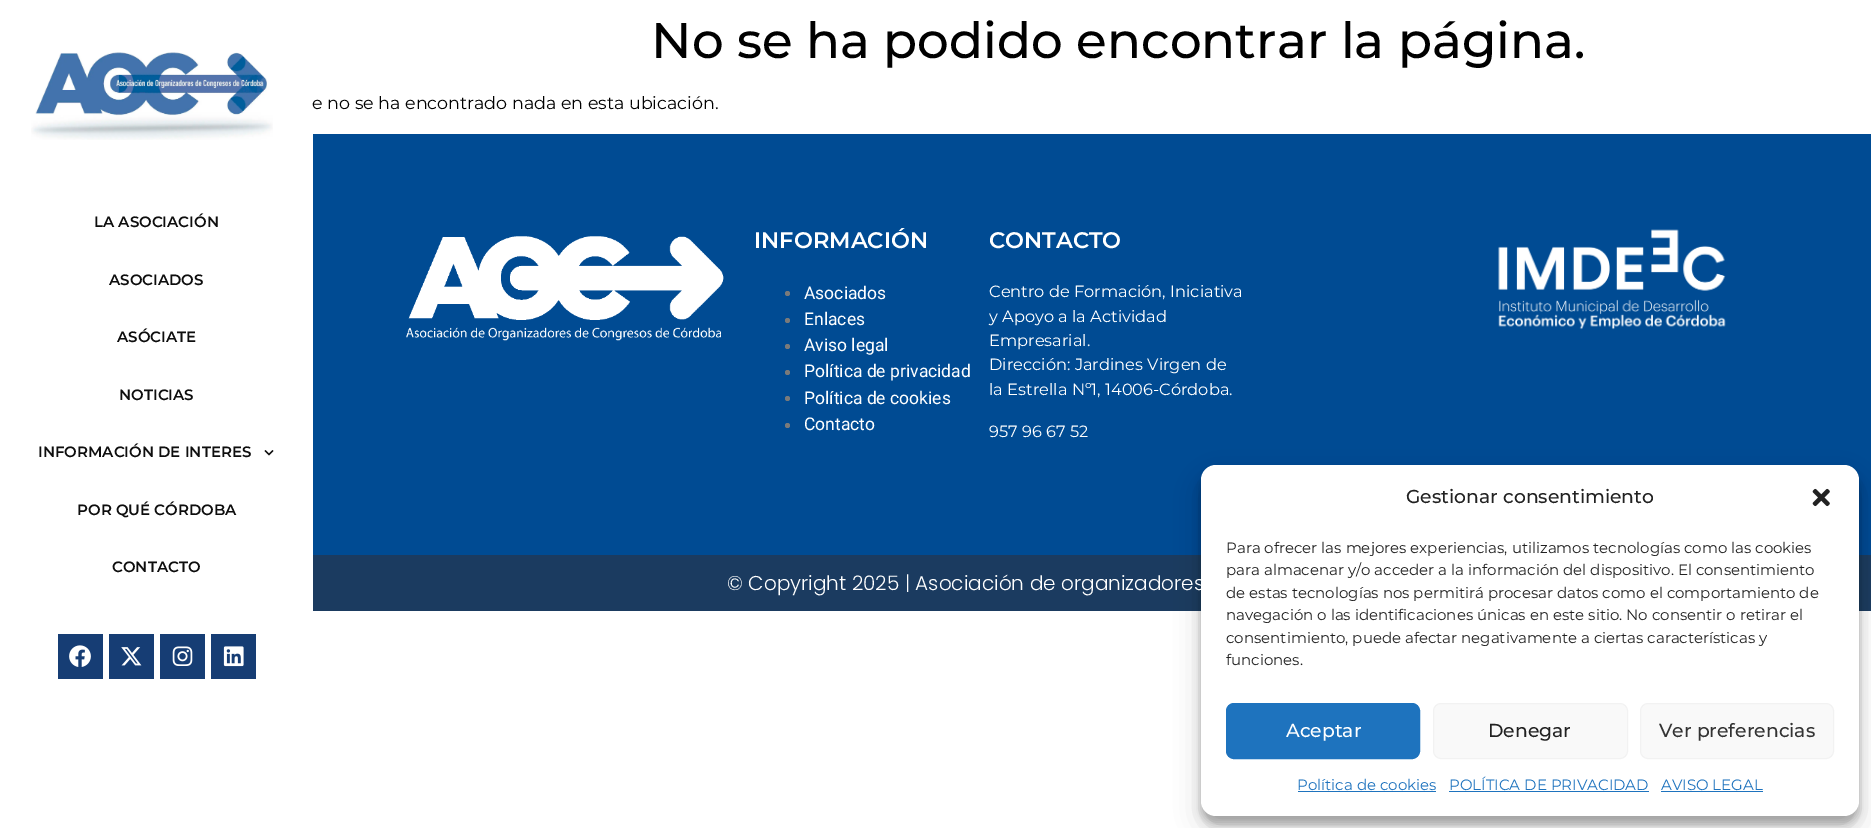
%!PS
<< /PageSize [1871 828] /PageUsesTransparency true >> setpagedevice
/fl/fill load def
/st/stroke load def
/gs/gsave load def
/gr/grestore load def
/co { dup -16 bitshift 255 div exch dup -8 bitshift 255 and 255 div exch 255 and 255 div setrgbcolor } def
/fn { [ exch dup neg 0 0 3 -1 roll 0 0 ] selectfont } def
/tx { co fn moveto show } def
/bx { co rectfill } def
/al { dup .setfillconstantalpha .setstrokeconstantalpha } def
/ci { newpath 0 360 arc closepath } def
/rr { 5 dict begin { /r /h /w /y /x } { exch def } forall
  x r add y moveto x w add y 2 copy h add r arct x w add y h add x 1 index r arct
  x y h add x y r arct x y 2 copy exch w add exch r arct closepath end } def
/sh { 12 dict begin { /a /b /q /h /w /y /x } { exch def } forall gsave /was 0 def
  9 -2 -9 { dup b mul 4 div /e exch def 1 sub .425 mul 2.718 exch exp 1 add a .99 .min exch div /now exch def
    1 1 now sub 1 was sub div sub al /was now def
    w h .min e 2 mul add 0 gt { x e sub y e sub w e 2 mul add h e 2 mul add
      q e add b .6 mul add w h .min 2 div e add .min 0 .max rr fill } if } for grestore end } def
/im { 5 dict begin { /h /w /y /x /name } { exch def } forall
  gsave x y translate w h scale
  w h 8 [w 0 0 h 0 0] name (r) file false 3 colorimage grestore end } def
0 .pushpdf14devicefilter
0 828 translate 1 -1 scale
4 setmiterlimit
0 0 1871 828 16#FFFFFF bx
(media/1.raw) 31 52 242 88 im
(media/2.raw) 264 450 10 6 im
58 634 45 45 16#163D74 bx
(media/3.raw) 69 645 22 22 im
109 634 45 45 16#163D74 bx
(media/4.raw) 121 647 21 19 im
160 634 45 45 16#163D74 bx
(media/5.raw) 172 646 21 20 im
211 634 45 45 16#163D74 bx
(media/6.raw) 223 646 21 21 im
313 134 1558 421 16#004B93 bx
(media/7.raw) 406 236 318 105 im
16#7A7A7A co
787.5 293.5 2.5 ci fl
787.5 320.5 2.5 ci fl
787.5 346.5 2.5 ci fl
787.5 372.5 2.5 ci fl
787.5 398.5 2.5 ci fl
787.5 425.5 2.5 ci fl
(media/8.raw) 1498 229 228 101 im
313 555 1558 56 16#1B3B60 bx
16#000000 co
1201 473 658 351 15 4 .23 sh
1201 478 658 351 15 12.5 .19 sh
16#FFFFFF co
1201 465 658 351 15 rr fl
(media/9.raw) 1812 488 18 19 im
16#1E73BE co
1226.5 703.5 193 55 7.5 rr gs fl gr
st
16#F9F9F9 co
1433.5 703.5 194 55 7.5 rr gs fl gr
16#F2F2F2 co
st
16#F9F9F9 co
1640.5 703.5 193 55 7.5 rr gs fl gr
16#F2F2F2 co
st
1298 791 138 1 16#1E73BE bx
1449 791 200 1 16#1E73BE bx
1661 791 102 1 16#1E73BE bx
(No se ha podido encontrar la página.) 651 58 /Montserrat-Medium 50 16#000000 tx
(e no se ha encontrado nada en esta ubicación.) 312 109 /Montserrat-Regular 17.5 16#000000 tx
(LA ASOCIACIÓN) 94 227 /Montserrat-SemiBold 15 16#0E0E0E tx
(ASOCIADOS) 109 285 /Montserrat-SemiBold 15 16#0E0E0E tx
(ASÓCIATE) 117 342 /Montserrat-SemiBold 15 16#0E0E0E tx
(NOTICIAS) 119 400 /Montserrat-SemiBold 15 16#0E0E0E tx
(INFORMACIÓN DE INTERES) 38 457 /Montserrat-SemiBold 15 16#0E0E0E tx
(POR QUÉ CÓRDOBA) 77 515 /Montserrat-SemiBold 15 16#0E0E0E tx
(CONTACTO) 112 572 /Montserrat-SemiBold 15 16#0E0E0E tx
(INFORMACIÓN) 754 248 /Montserrat-SemiBold 22.5 16#FFFFFF tx
(Asociados) 804 299 /Roboto-Regular 17.5 16#FFFFFF tx
(Enlaces) 804 325 /Roboto-Regular 17.5 16#FFFFFF tx
(Aviso legal) 804 351 /Roboto-Regular 17.5 16#FFFFFF tx
(Política de privacidad) 804 377 /Roboto-Regular 17.5 16#FFFFFF tx
(Política de cookies) 804 404 /Roboto-Regular 17.5 16#FFFFFF tx
(Contacto) 804 430 /Roboto-Regular 17.5 16#FFFFFF tx
(CONTACTO) 989 248 /Montserrat-SemiBold 22.5 16#FFFFFF tx
(Centro de Formación, Iniciativa) 989 297 /Montserrat-Regular 16.25 16#FFFFFF tx
(y Apoyo a la Actividad) 989 322 /Montserrat-Regular 16.25 16#FFFFFF tx
(Empresarial.) 989 346 /Montserrat-Regular 16.25 16#FFFFFF tx
(Dirección: Jardines Virgen de) 989 370 /Montserrat-Regular 16.25 16#FFFFFF tx
(la Estrella Nº1, 14006-Córdoba.) 989 395 /Montserrat-Regular 16.25 16#FFFFFF tx
(957 96 67 52) 989 437 /Montserrat-Regular 16.25 16#FFFFFF tx
(© Copyright 2025 | Asociación de organizadores) 727 590 /Poppins-Light 20 16#FFFFFF tx
(Gestionar consentimiento) 1406 503 /Montserrat-Medium 18.75 16#222222 tx
(Para ofrecer las mejores experiencias, utilizamos tecnologías como las cookies) 1226 553 /Montserrat-Regular 15 16#222222 tx
(para almacenar y/o acceder a la información del dispositivo. El consentimiento) 1226 575 /Montserrat-Regular 15 16#222222 tx
(de estas tecnologías nos permitirá procesar datos como el comportamiento de) 1226 598 /Montserrat-Regular 15 16#222222 tx
(navegación o las identificaciones únicas en este sitio. No consentir o retirar el) 1226 620 /Montserrat-Regular 15 16#222222 tx
(consentimiento, puede afectar negativamente a ciertas características y) 1226 643 /Montserrat-Regular 15 16#222222 tx
(funciones.) 1226 665 /Montserrat-Regular 15 16#222222 tx
(Aceptar) 1286 737 /Montserrat-Medium 18.75 16#FFFFFF tx
(Denegar) 1488 737 /Montserrat-Medium 18.75 16#222222 tx
(Ver preferencias) 1659 737 /Montserrat-Medium 18.75 16#333333 tx
(Política de cookies) 1297 790 /Montserrat-Regular 15 16#1E73BE tx
(POLÍTICA DE PRIVACIDAD) 1449 790 /Montserrat-Regular 15 16#1E73BE tx
(AVISO LEGAL) 1661 790 /Montserrat-Regular 15 16#1E73BE tx
.poppdf14devicefilter showpage
